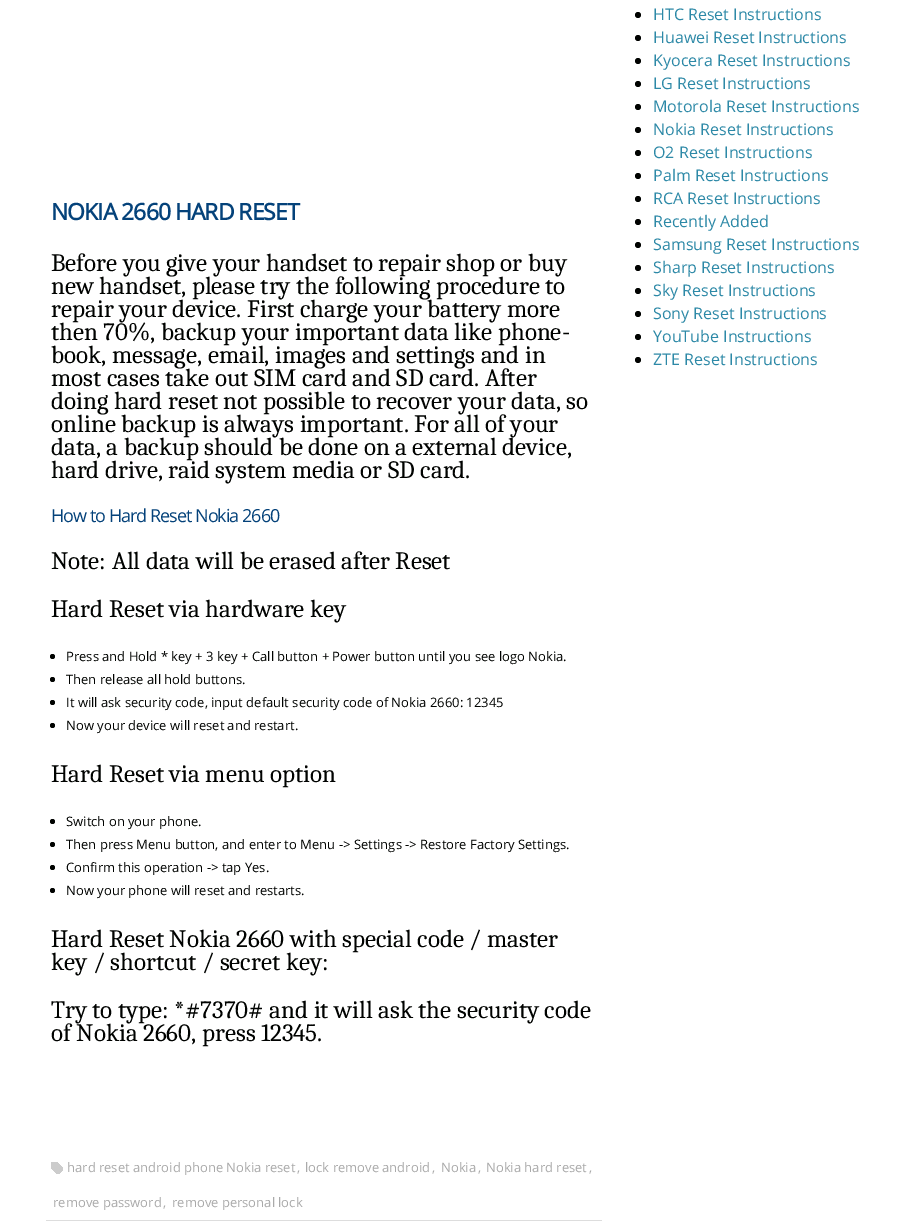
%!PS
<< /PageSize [910 1225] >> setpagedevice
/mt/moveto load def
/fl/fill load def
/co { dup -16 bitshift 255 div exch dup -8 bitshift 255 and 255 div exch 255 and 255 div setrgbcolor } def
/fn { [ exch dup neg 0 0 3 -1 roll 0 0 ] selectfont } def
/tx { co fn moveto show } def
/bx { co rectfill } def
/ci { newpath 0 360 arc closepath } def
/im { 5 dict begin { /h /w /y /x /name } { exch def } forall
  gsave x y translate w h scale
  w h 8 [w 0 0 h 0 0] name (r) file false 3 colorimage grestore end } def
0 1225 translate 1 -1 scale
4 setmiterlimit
0 0 910 1225 16#FFFFFF bx
16#000200 co
52.5 656.5 2.5 ci fl
52.5 679.5 2.5 ci fl
52.5 702.5 2.5 ci fl
52.5 725.5 2.5 ci fl
52.5 821.5 2.5 ci fl
52.5 844.5 2.5 ci fl
52.5 867.5 2.5 ci fl
52.5 890.5 2.5 ci fl
(media/1.raw) 51 1162 12 12 im
46 1220 556 1 16#DDDDDD bx
16#000200 co
638 15 3 ci fl
638 38 3 ci fl
638 61 3 ci fl
638 84 3 ci fl
638 107 3 ci fl
638 130 3 ci fl
638 153 3 ci fl
638 176 3 ci fl
638 199 3 ci fl
638 222 3 ci fl
638 245 3 ci fl
638 268 3 ci fl
638 291 3 ci fl
638 314 3 ci fl
638 337 3 ci fl
638 360 3 ci fl
/OpenSans-Bold 23 fn
16#04427A co
51 220 mt -1 0 (NOKIA 2660 HARD RESET) ashow
(Before you give your handset to repair shop or buy) 51 271 /Caladea-Regular 25 16#000200 tx
(new handset, please try the following procedure to) 51 294 /Caladea-Regular 25 16#000200 tx
(repair your device. First charge your battery more) 51 317 /Caladea-Regular 25 16#000200 tx
(then 70%, backup your important data like phone-) 51 340 /Caladea-Regular 25 16#000200 tx
(book, message, email, images and settings and in) 51 363 /Caladea-Regular 25 16#000200 tx
(most cases take out SIM card and SD card. After) 51 386 /Caladea-Regular 25 16#000200 tx
(doing hard reset not possible to recover your data, so) 51 409 /Caladea-Regular 25 16#000200 tx
(online backup is always important. For all of your) 51 432 /Caladea-Regular 25 16#000200 tx
(data, a backup should be done on a external device,) 51 455 /Caladea-Regular 25 16#000200 tx
(hard drive, raid system media or SD card.) 51 478 /Caladea-Regular 25 16#000200 tx
/OpenSans-Regular 18 fn
16#04427A co
51 522 mt -1 0 (How to Hard Reset Nokia 2660) ashow
(Note: All data will be erased after Reset) 51 569 /Caladea-Regular 25 16#000200 tx
(Hard Reset via hardware key) 51 617 /Caladea-Regular 25 16#000200 tx
(Press and Hold * key + 3 key + Call button + Power button until you see logo Nokia.) 66 661 /OpenSans-Regular 13 16#000200 tx
(Then release all hold buttons.) 66 684 /OpenSans-Regular 13 16#000200 tx
(It will ask security code, input default security code of Nokia 2660: 12345) 66 707 /OpenSans-Regular 13 16#000200 tx
(Now your device will reset and restart.) 66 730 /OpenSans-Regular 13 16#000200 tx
(Hard Reset via menu option) 51 782 /Caladea-Regular 25 16#000200 tx
(Switch on your phone.) 66 826 /OpenSans-Regular 13 16#000200 tx
(Then press Menu button, and enter to Menu -> Settings -> Restore Factory Settings.) 66 849 /OpenSans-Regular 13 16#000200 tx
(Confirm this operation -> tap Yes.) 66 872 /OpenSans-Regular 13 16#000200 tx
(Now your phone will reset and restarts.) 66 895 /OpenSans-Regular 13 16#000200 tx
(Hard Reset Nokia 2660 with special code / master) 51 947 /Caladea-Regular 25 16#000200 tx
(key / shortcut / secret key:) 51 970 /Caladea-Regular 25 16#000200 tx
(Try to type: *#7370# and it will ask the security code) 51 1018 /Caladea-Regular 25 16#000200 tx
(of Nokia 2660, press 12345.) 51 1041 /Caladea-Regular 25 16#000200 tx
(hard reset android phone Nokia reset) 67 1172 /OpenSans-Regular 13 16#AAAAAA tx
(,) 297 1172 /OpenSans-Regular 13 16#AAAAAA tx
(lock remove android) 305 1172 /OpenSans-Regular 13 16#AAAAAA tx
(,) 432 1172 /OpenSans-Regular 13 16#AAAAAA tx
(Nokia) 441 1172 /OpenSans-Regular 13 16#AAAAAA tx
(,) 478 1172 /OpenSans-Regular 13 16#AAAAAA tx
(Nokia hard reset) 486 1172 /OpenSans-Regular 13 16#AAAAAA tx
(,) 589 1172 /OpenSans-Regular 13 16#AAAAAA tx
(remove password) 53 1207 /OpenSans-Regular 13 16#AAAAAA tx
(,) 163 1207 /OpenSans-Regular 13 16#AAAAAA tx
(remove personal lock) 172 1207 /OpenSans-Regular 13 16#AAAAAA tx
(HTC Reset Instructions) 653 20 /OpenSans-Regular 16 16#2D89A7 tx
(Huawei Reset Instructions) 653 43 /OpenSans-Regular 16 16#2D89A7 tx
(Kyocera Reset Instructions) 653 66 /OpenSans-Regular 16 16#2D89A7 tx
(LG Reset Instructions) 653 89 /OpenSans-Regular 16 16#2D89A7 tx
(Motorola Reset Instructions) 653 112 /OpenSans-Regular 16 16#2D89A7 tx
(Nokia Reset Instructions) 653 135 /OpenSans-Regular 16 16#2D89A7 tx
(O2 Reset Instructions) 653 158 /OpenSans-Regular 16 16#2D89A7 tx
(Palm Reset Instructions) 653 181 /OpenSans-Regular 16 16#2D89A7 tx
(RCA Reset Instructions) 653 204 /OpenSans-Regular 16 16#2D89A7 tx
(Recently Added) 653 227 /OpenSans-Regular 16 16#2D89A7 tx
(Samsung Reset Instructions) 653 250 /OpenSans-Regular 16 16#2D89A7 tx
(Sharp Reset Instructions) 653 273 /OpenSans-Regular 16 16#2D89A7 tx
(Sky Reset Instructions) 653 296 /OpenSans-Regular 16 16#2D89A7 tx
(Sony Reset Instructions) 653 319 /OpenSans-Regular 16 16#2D89A7 tx
(YouTube Instructions) 653 342 /OpenSans-Regular 16 16#2D89A7 tx
(ZTE Reset Instructions) 653 365 /OpenSans-Regular 16 16#2D89A7 tx
showpage
